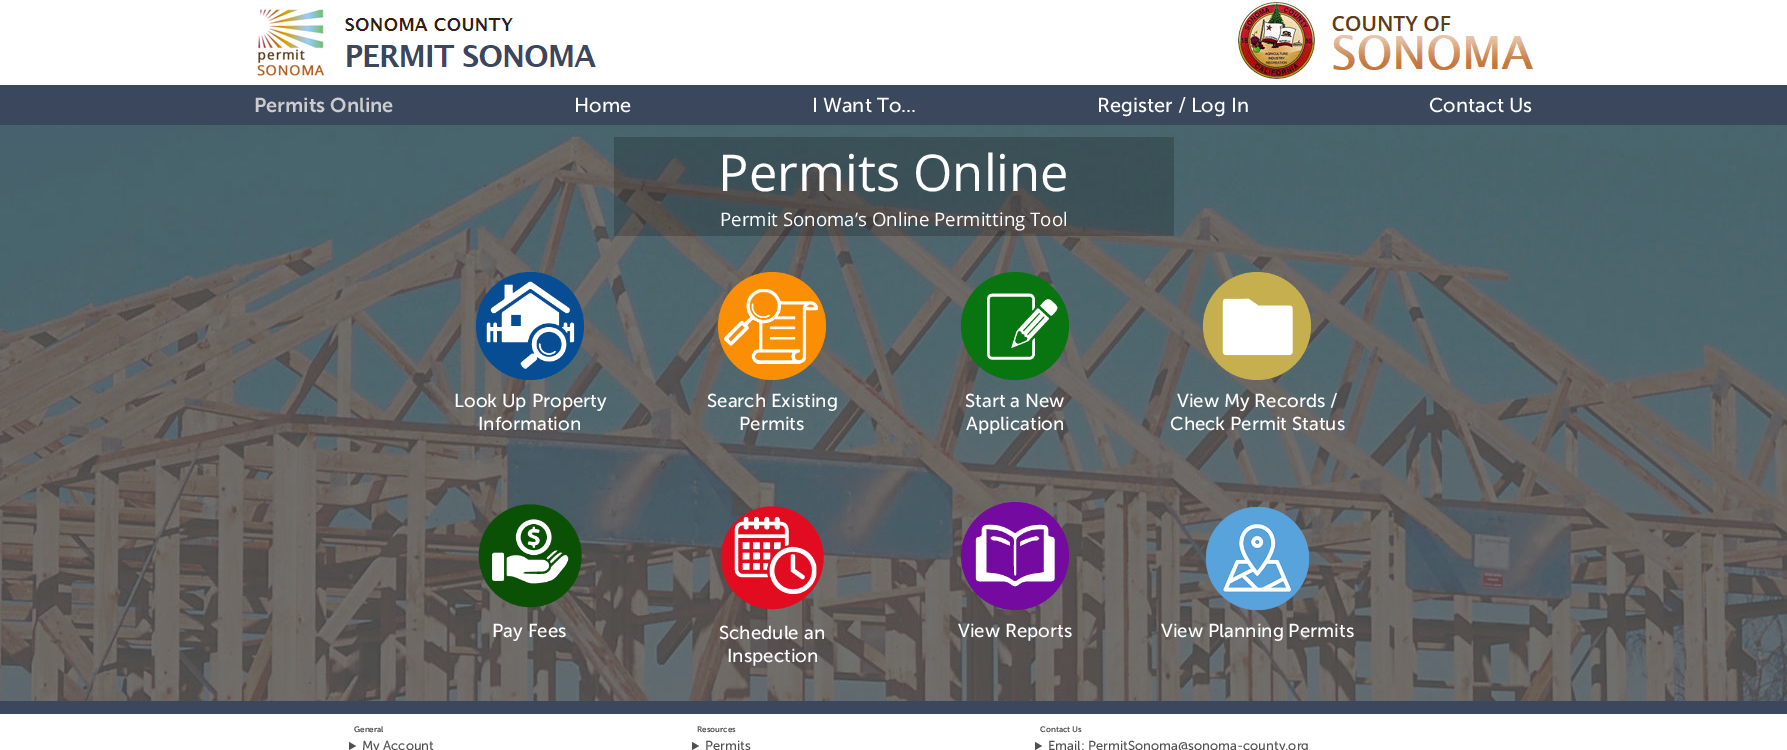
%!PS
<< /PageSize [1787 750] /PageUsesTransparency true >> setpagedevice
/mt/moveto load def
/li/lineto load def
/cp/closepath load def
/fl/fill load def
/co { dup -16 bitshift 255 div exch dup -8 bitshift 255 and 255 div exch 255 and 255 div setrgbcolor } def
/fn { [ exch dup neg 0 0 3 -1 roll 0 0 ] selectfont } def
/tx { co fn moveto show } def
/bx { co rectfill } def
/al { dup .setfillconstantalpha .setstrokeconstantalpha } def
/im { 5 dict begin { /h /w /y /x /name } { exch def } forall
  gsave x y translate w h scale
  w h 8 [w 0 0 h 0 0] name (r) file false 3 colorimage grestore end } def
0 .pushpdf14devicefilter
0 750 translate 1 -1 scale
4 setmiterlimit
0 0 1787 750 16#FFFFFF bx
(media/1.raw) 257 9 339 67 im
(media/2.raw) 1235 0 299 80 im
0 85 1787 40 16#3A475D bx
(media/3.raw) 0 125 1787 576 im
0.2 al
614 137 560 99 16#000000 bx
1 al
(media/4.raw) 476 272 108 108 im
(media/5.raw) 717 272 109 108 im
(media/6.raw) 960 272 109 108 im
(media/7.raw) 1202 272 109 108 im
(media/8.raw) 478 504 104 104 im
(media/9.raw) 720 506 104 104 im
(media/10.raw) 961 502 108 108 im
(media/11.raw) 1205 506 105 105 im
0 701 1787 13 16#3A475D bx
16#505050 co
349 750 mt 349 742 li 356 746 li cp fl
692 750 mt 692 742 li 699 746 li cp fl
1035 750 mt 1035 742 li 1042 746 li cp fl
(Permits Online) 254 112 /MuseoSans-SemiBold 20 16#CCCCCC tx
(Home) 574 112 /MuseoSans-Regular 20 16#FFFFFF tx
(I Want To...) 812 112 /MuseoSans-Regular 20 16#FFFFFF tx
(Register / Log In) 1097 112 /MuseoSans-Regular 20 16#FFFFFF tx
(Contact Us) 1429 112 /MuseoSans-Regular 20 16#FFFFFF tx
(Permits Online) 718 191 /OpenSans-Regular 50.75 16#FFFFFF tx
(Permit Sonoma’s Online Permitting Tool) 720 226 /OpenSans-Regular 18.7 16#FFFFFF tx
(Look Up Property) 454 407 /MuseoSans-Regular 18.7 16#FFFFFF tx
(Information) 478 430 /MuseoSans-Regular 18.7 16#FFFFFF tx
(Search Existing) 707 407 /MuseoSans-Regular 18.7 16#FFFFFF tx
(Permits) 739 430 /MuseoSans-Regular 18.7 16#FFFFFF tx
(Start a New) 965 407 /MuseoSans-Regular 18.7 16#FFFFFF tx
(Application) 966 430 /MuseoSans-Regular 18.7 16#FFFFFF tx
(View My Records /) 1177 407 /MuseoSans-Regular 18.7 16#FFFFFF tx
(Check Permit Status) 1170 430 /MuseoSans-Regular 18.7 16#FFFFFF tx
(Pay Fees) 492 637 /MuseoSans-Regular 18.7 16#FFFFFF tx
(Schedule an) 719 639 /MuseoSans-Regular 18.7 16#FFFFFF tx
(Inspection) 727 662 /MuseoSans-Regular 18.7 16#FFFFFF tx
(View Reports) 958 637 /MuseoSans-Regular 18.7 16#FFFFFF tx
(View Planning Permits) 1161 637 /MuseoSans-Regular 18.7 16#FFFFFF tx
(General) 354 732 /MuseoSans-SemiBold 8 16#505050 tx
(My Account) 362 750 /MuseoSans-Regular 13 16#505050 tx
(Resources) 697 732 /MuseoSans-SemiBold 8 16#505050 tx
(Permits) 705 750 /MuseoSans-Regular 13 16#505050 tx
(Contact Us) 1040 732 /MuseoSans-SemiBold 8 16#505050 tx
(Email: PermitSonoma@sonoma-county.org) 1048 750 /MuseoSans-Regular 13 16#505050 tx
.poppdf14devicefilter showpage
